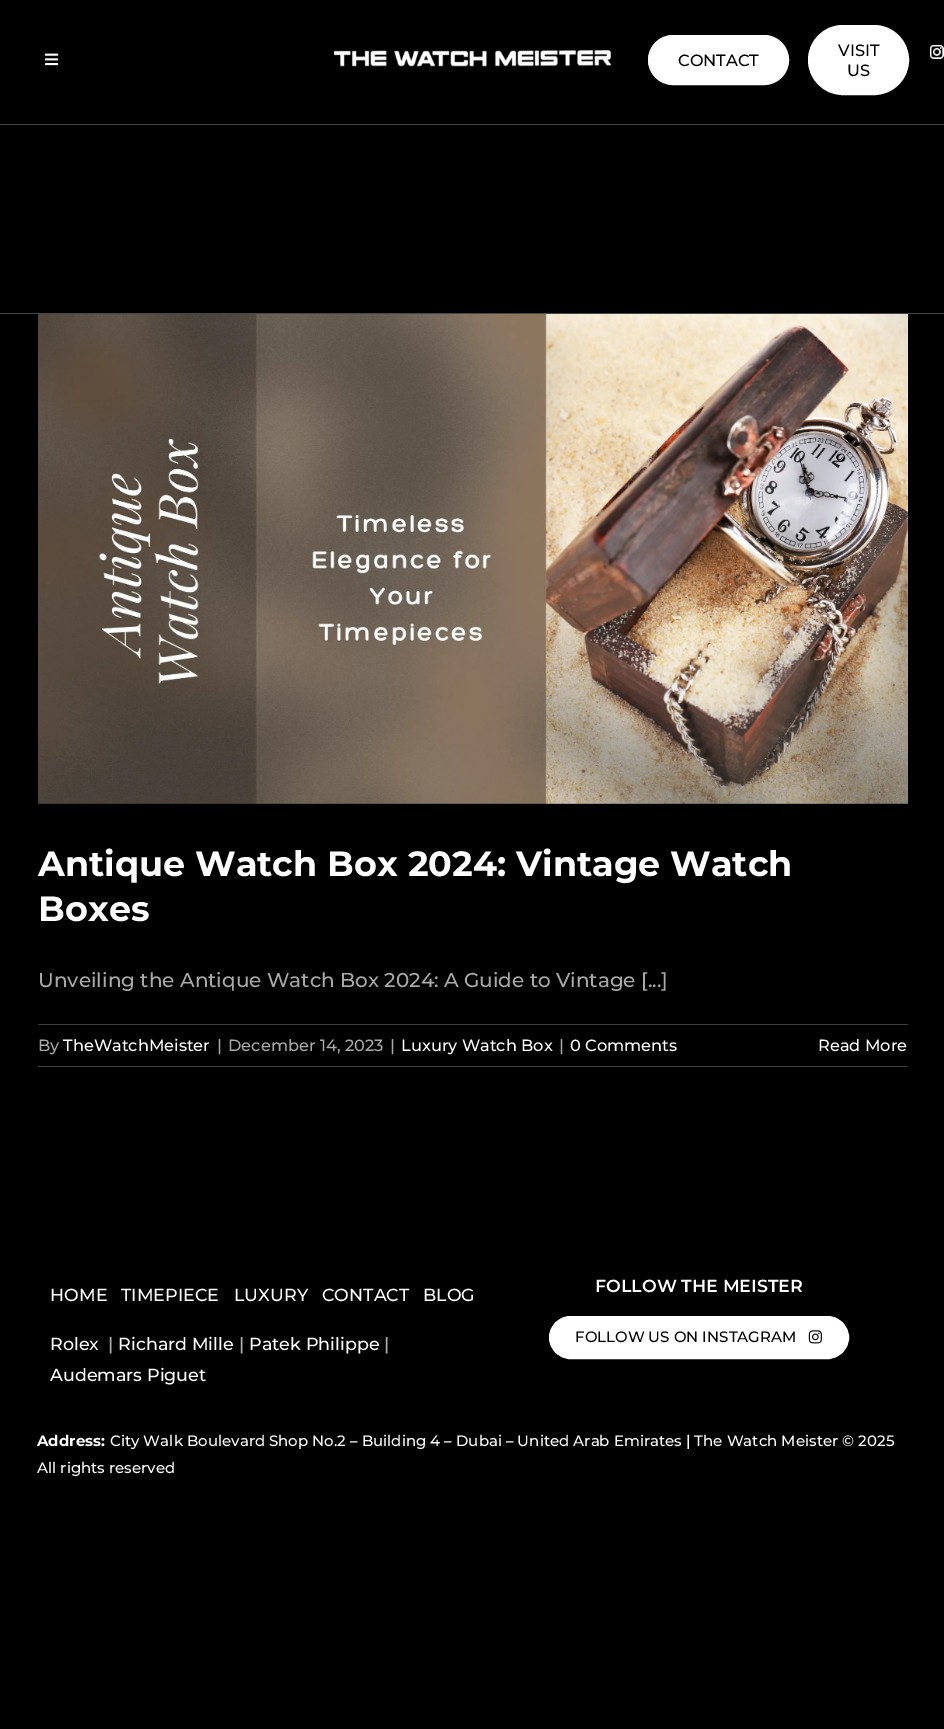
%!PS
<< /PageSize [944 1729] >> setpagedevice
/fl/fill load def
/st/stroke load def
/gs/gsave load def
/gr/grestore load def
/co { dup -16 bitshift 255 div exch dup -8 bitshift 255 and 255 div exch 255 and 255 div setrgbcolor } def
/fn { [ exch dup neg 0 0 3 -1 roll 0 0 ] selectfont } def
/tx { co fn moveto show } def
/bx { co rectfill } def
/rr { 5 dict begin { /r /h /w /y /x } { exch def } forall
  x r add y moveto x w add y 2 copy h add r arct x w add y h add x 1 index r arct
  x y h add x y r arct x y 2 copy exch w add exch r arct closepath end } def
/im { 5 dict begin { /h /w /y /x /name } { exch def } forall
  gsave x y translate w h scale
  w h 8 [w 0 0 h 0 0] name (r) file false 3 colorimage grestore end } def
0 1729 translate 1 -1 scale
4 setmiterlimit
0 0 944 1729 16#000000 bx
(media/1.raw) 45 53 14 13 im
(media/2.raw) 333 50 279 17 im
16#FFFFFF co
808.5 25.5 100 69 34.5 rr gs fl gr
st
(media/3.raw) 930 45 14 14 im
648.5 35.5 140 49 24.5 rr gs fl gr
st
0 124 944 1 16#464646 bx
0 313 944 1 16#464646 bx
(media/4.raw) 38 314 870 490 im
38 1024 870 1 16#3E3E3E bx
38 1066 870 1 16#3E3E3E bx
16#FFFFFF co
549.5 1316.5 299 42 21 rr gs fl gr
st
(media/5.raw) 808 1330 14 14 im
(VISIT) 838 56 /Montserrat-Medium 16.25 16#000000 tx
(US) 847 76 /Montserrat-Medium 16.25 16#000000 tx
(CONTACT) 678 66 /Montserrat-Medium 16.25 16#000000 tx
(Antique Watch Box 2024: Vintage Watch) 38 876 /Montserrat-Bold 35 16#FFFFFF tx
(Boxes) 38 921 /Montserrat-Bold 35 16#FFFFFF tx
(Unveiling the Antique Watch Box 2024: A Guide to Vintage [...]) 38 987 /Montserrat-Medium 20 16#AAA9A9 tx
(By) 38 1051 /Montserrat-Medium 16.25 16#AAA9A9 tx
(TheWatchMeister) 63 1051 /Montserrat-Medium 16.25 16#FFFFFF tx
(|) 217 1051 /Montserrat-Medium 16.25 16#AAA9A9 tx
(December 14, 2023) 228 1051 /Montserrat-Medium 16.25 16#AAA9A9 tx
(|) 390 1051 /Montserrat-Medium 16.25 16#AAA9A9 tx
(Luxury Watch Box) 401 1051 /Montserrat-Medium 16.25 16#FFFFFF tx
(|) 559 1051 /Montserrat-Medium 16.25 16#AAA9A9 tx
(0 Comments) 570 1051 /Montserrat-Medium 16.25 16#FFFFFF tx
(Read More) 818 1051 /Montserrat-Medium 16.25 16#FFFFFF tx
(HOME) 50 1301 /Montserrat-Medium 17.5 16#FFFFFF tx
(TIMEPIECE) 121 1301 /Montserrat-Medium 17.5 16#FFFFFF tx
(LUXURY) 234 1301 /Montserrat-Medium 17.5 16#FFFFFF tx
(CONTACT) 322 1301 /Montserrat-Medium 17.5 16#FFFFFF tx
(BLOG) 423 1301 /Montserrat-Medium 17.5 16#FFFFFF tx
(Rolex) 50 1350 /Montserrat-Medium 17.5 16#FFFFFF tx
(|) 108 1350 /Montserrat-Medium 17.5 16#AAA9A9 tx
(Richard Mille) 118 1350 /Montserrat-Medium 17.5 16#FFFFFF tx
(|) 239 1350 /Montserrat-Medium 17.5 16#AAA9A9 tx
(Patek Philippe) 249 1350 /Montserrat-Medium 17.5 16#FFFFFF tx
(|) 384 1350 /Montserrat-Medium 17.5 16#AAA9A9 tx
(Audemars Piguet) 50 1381 /Montserrat-Medium 17.5 16#FFFFFF tx
(FOLLOW THE MEISTER) 595 1292 /Montserrat-SemiBold 17.5 16#FFFFFF tx
(FOLLOW US ON INSTAGRAM) 575 1342 /Montserrat-Medium 15 16#000000 tx
(Address:) 37 1446 /Montserrat-Bold 15 16#FFFFFF tx
(City Walk Boulevard Shop No.2 – Building 4 – Dubai – United Arab Emirates | The Watch Meister © 2025) 110 1446 /Montserrat-Medium 15 16#FFFFFF tx
(All rights reserved) 37 1473 /Montserrat-Medium 15 16#FFFFFF tx
showpage
